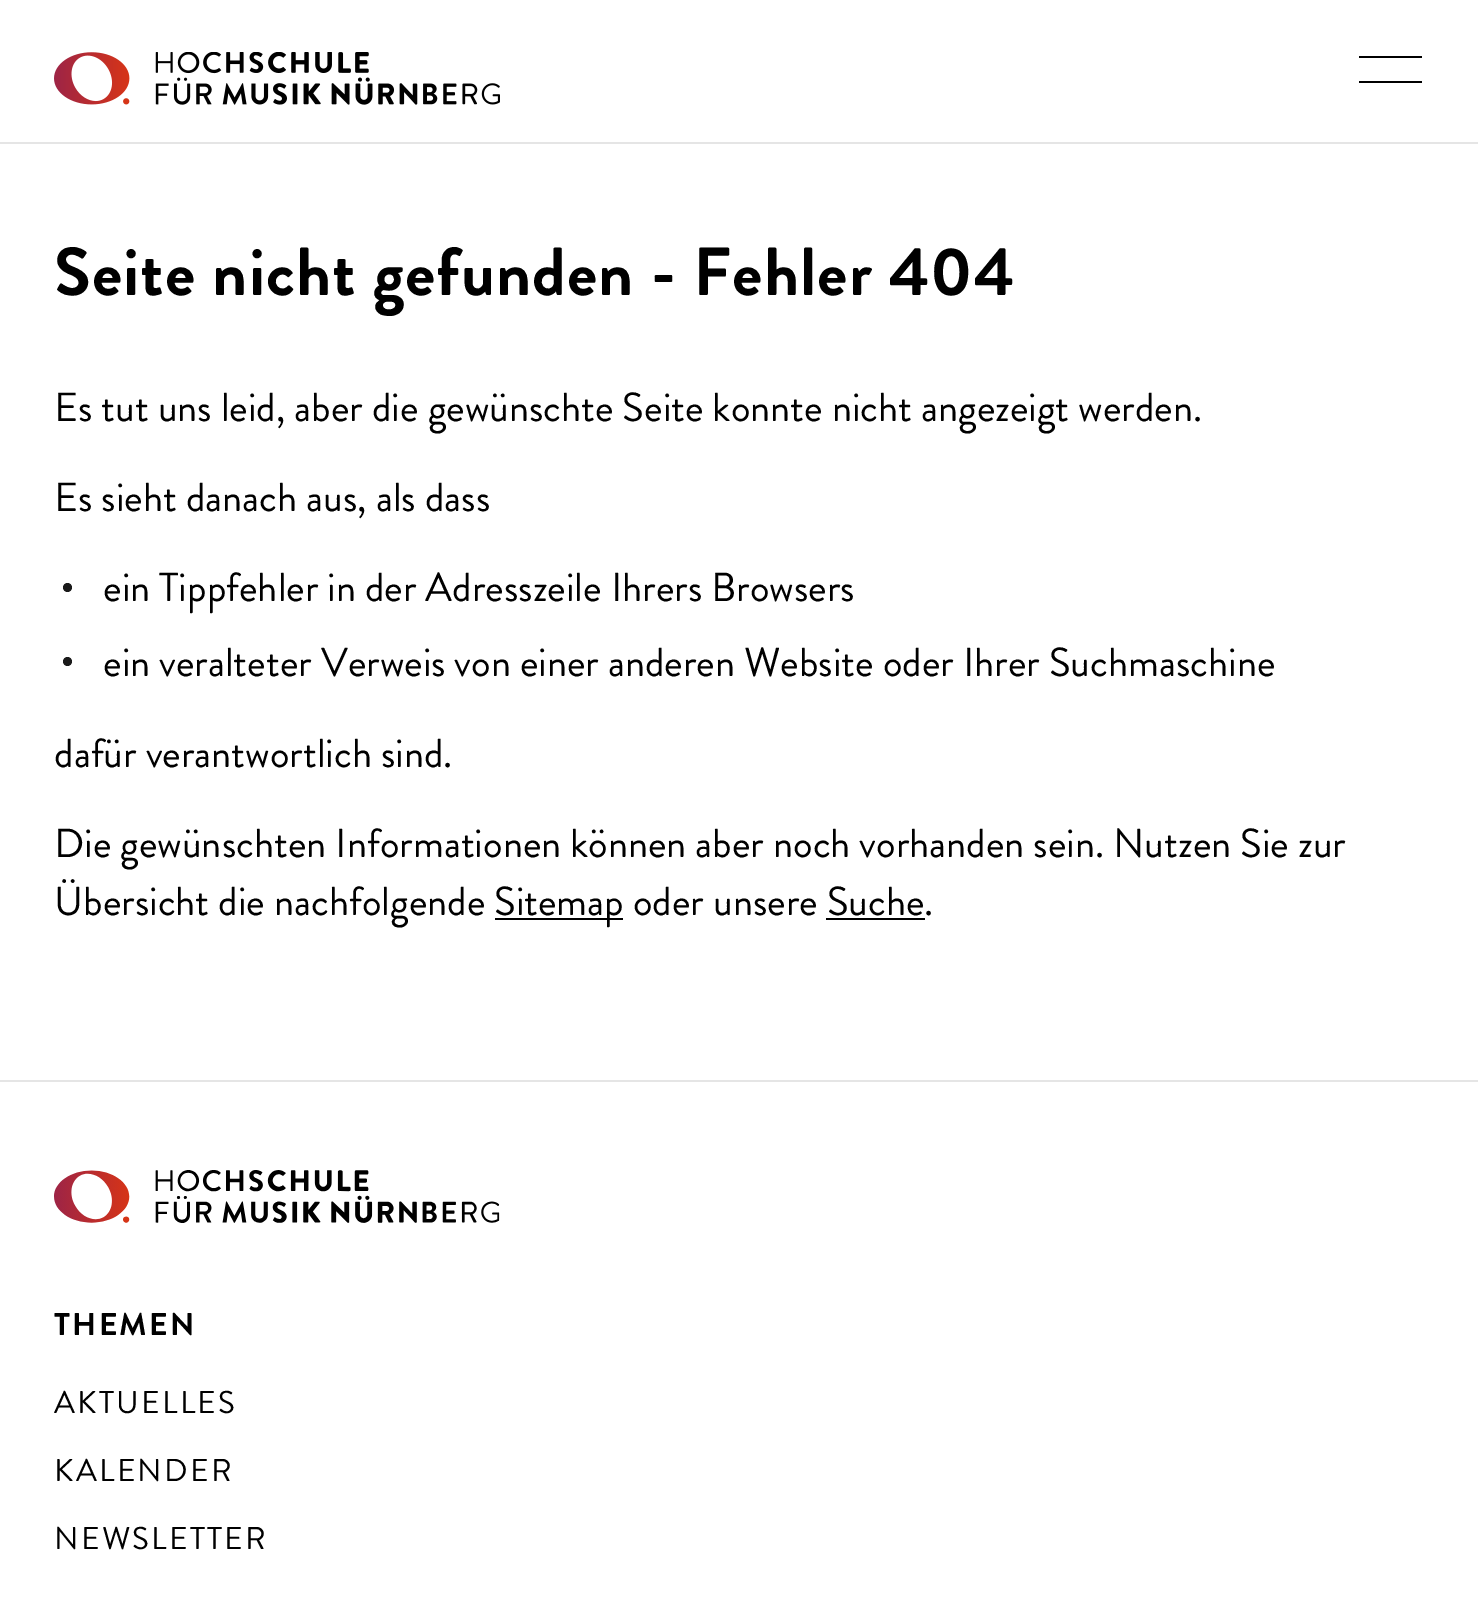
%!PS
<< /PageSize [1478 1602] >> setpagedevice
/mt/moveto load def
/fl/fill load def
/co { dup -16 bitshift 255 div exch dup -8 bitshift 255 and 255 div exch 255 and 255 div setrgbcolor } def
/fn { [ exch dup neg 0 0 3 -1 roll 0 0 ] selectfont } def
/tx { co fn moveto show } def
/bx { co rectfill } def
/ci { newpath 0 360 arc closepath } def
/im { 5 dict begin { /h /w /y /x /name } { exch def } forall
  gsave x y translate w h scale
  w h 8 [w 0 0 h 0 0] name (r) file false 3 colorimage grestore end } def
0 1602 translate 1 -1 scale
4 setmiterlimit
0 0 1478 1602 16#FFFFFF bx
0 142 1478 2 16#E5E5E5 bx
(media/1.raw) 54 52 446 53 im
1359 56 63 2 16#000000 bx
1359 81 63 2 16#000000 bx
16#1A1A1A co
67.5 587.5 4.5 ci fl
67.5 661.5 4.5 ci fl
495 918 128 2 16#000000 bx
826 918 99 2 16#000000 bx
0 1080 1478 2 16#E5E5E5 bx
(media/2.raw) 54 1170 446 53 im
/BrandonGrotesque-Bold 67.75 fn
16#000000 co
54 295 mt 1.1 0 (Seite nicht gefunden - Fehler 404) ashow
(Es tut uns leid, aber die gewünschte Seite konnte nicht angezeigt werden.) 54 421 /BrandonGrotesque-Regular 40.5 16#000000 tx
(Es sieht danach aus, als dass) 54 511 /BrandonGrotesque-Regular 40.5 16#000000 tx
(ein Tippfehler in der Adresszeile Ihrers Browsers) 103 601 /BrandonGrotesque-Regular 40.5 16#000000 tx
(ein veralteter Verweis von einer anderen Website oder Ihrer Suchmaschine) 103 676 /BrandonGrotesque-Regular 40.5 16#000000 tx
(dafür verantwortlich sind.) 54 767 /BrandonGrotesque-Regular 40.5 16#000000 tx
(Die gewünschten Informationen können aber noch vorhanden sein. Nutzen Sie zur) 54 857 /BrandonGrotesque-Regular 40.5 16#000000 tx
(Übersicht die nachfolgende) 54 915 /BrandonGrotesque-Regular 40.5 16#000000 tx
(Sitemap oder unsere Suche.) 494 915 /BrandonGrotesque-Regular 40.5 16#000000 tx
/BrandonGrotesque-Bold 31.5 fn
54 1335 mt 2.25 0 (THEMEN) ashow
/BrandonGrotesque-Regular 31.5 fn
54 1413 mt 2.25 0 (AKTUELLES) ashow
54 1481 mt 2.25 0 (KALENDER) ashow
54 1549 mt 2.25 0 (NEWSLETTER) ashow
showpage
